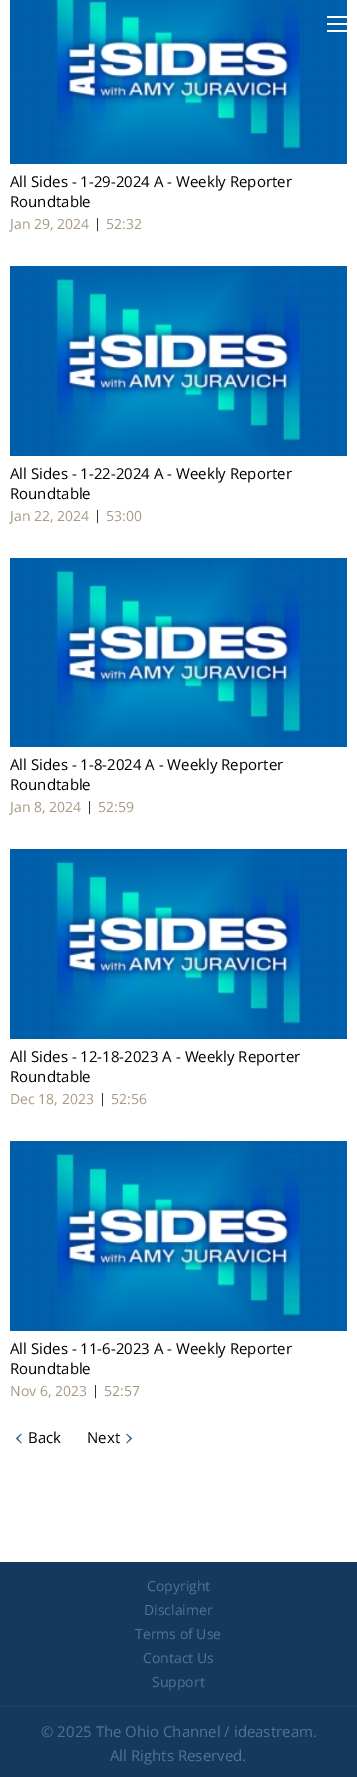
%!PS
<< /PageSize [357 1777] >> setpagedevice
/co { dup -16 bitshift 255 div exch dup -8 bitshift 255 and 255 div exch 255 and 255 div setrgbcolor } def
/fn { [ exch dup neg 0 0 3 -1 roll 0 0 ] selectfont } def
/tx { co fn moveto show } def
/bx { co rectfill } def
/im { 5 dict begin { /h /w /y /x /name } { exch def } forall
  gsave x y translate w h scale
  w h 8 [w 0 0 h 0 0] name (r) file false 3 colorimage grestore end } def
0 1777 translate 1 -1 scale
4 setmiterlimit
0 0 357 1777 16#FFFFFF bx
(media/1.raw) 10 0 337 164 im
327 16 20 2 16#FFFFFF bx
327 23 20 2 16#FFFFFF bx
327 30 20 2 16#FFFFFF bx
(media/2.raw) 10 266 337 190 im
(media/3.raw) 10 558 337 189 im
(media/2.raw) 10 849 337 190 im
(media/2.raw) 10 1141 337 190 im
(media/4.raw) 15 1433 7 11 im
(media/5.raw) 126 1433 7 11 im
0 1562 357 144 16#14385E bx
0 1706 357 1 16#1C426B bx
0 1707 357 70 16#14385E bx
(All Sides - 1-29-2024 A - Weekly Reporter) 10 187 /OpenSans-Regular 15 16#000000 tx
(Roundtable) 10 207 /OpenSans-Regular 15 16#000000 tx
(Jan 29, 2024) 10 229 /OpenSans-Regular 14 16#A89980 tx
(|) 94 228 /OpenSans-Regular 13 16#333333 tx
(52:32) 106 229 /OpenSans-Regular 14 16#A89980 tx
(All Sides - 1-22-2024 A - Weekly Reporter) 10 479 /OpenSans-Regular 15 16#000000 tx
(Roundtable) 10 499 /OpenSans-Regular 15 16#000000 tx
(Jan 22, 2024) 10 521 /OpenSans-Regular 14 16#A89980 tx
(|) 94 520 /OpenSans-Regular 13 16#333333 tx
(53:00) 106 521 /OpenSans-Regular 14 16#A89980 tx
(All Sides - 1-8-2024 A - Weekly Reporter) 10 770 /OpenSans-Regular 15 16#000000 tx
(Roundtable) 10 790 /OpenSans-Regular 15 16#000000 tx
(Jan 8, 2024) 10 812 /OpenSans-Regular 14 16#A89980 tx
(|) 86 811 /OpenSans-Regular 13 16#333333 tx
(52:59) 98 812 /OpenSans-Regular 14 16#A89980 tx
(All Sides - 12-18-2023 A - Weekly Reporter) 10 1062 /OpenSans-Regular 15 16#000000 tx
(Roundtable) 10 1082 /OpenSans-Regular 15 16#000000 tx
(Dec 18, 2023) 10 1104 /OpenSans-Regular 14 16#A89980 tx
(|) 99 1103 /OpenSans-Regular 13 16#333333 tx
(52:56) 111 1104 /OpenSans-Regular 14 16#A89980 tx
(All Sides - 11-6-2023 A - Weekly Reporter) 10 1354 /OpenSans-Regular 15 16#000000 tx
(Roundtable) 10 1374 /OpenSans-Regular 15 16#000000 tx
(Nov 6, 2023) 10 1396 /OpenSans-Regular 14 16#A89980 tx
(|) 92 1395 /OpenSans-Regular 13 16#333333 tx
(52:57) 104 1396 /OpenSans-Regular 14 16#A89980 tx
(Back) 28 1443 /OpenSans-Regular 15 16#000000 tx
(Next) 87 1443 /OpenSans-Regular 15 16#000000 tx
(Copyright) 147 1591 /OpenSans-Regular 14 16#527291 tx
(Disclaimer) 144 1615 /OpenSans-Regular 14 16#527291 tx
(Terms of Use) 135 1639 /OpenSans-Regular 14 16#527291 tx
(Contact Us) 143 1663 /OpenSans-Regular 14 16#527291 tx
(Support) 152 1687 /OpenSans-Regular 14 16#527291 tx
(© 2025 The Ohio Channel / ideastream.) 41 1737 /OpenSans-Regular 15 16#527291 tx
(All Rights Reserved.) 110 1761 /OpenSans-Regular 15 16#527291 tx
showpage
